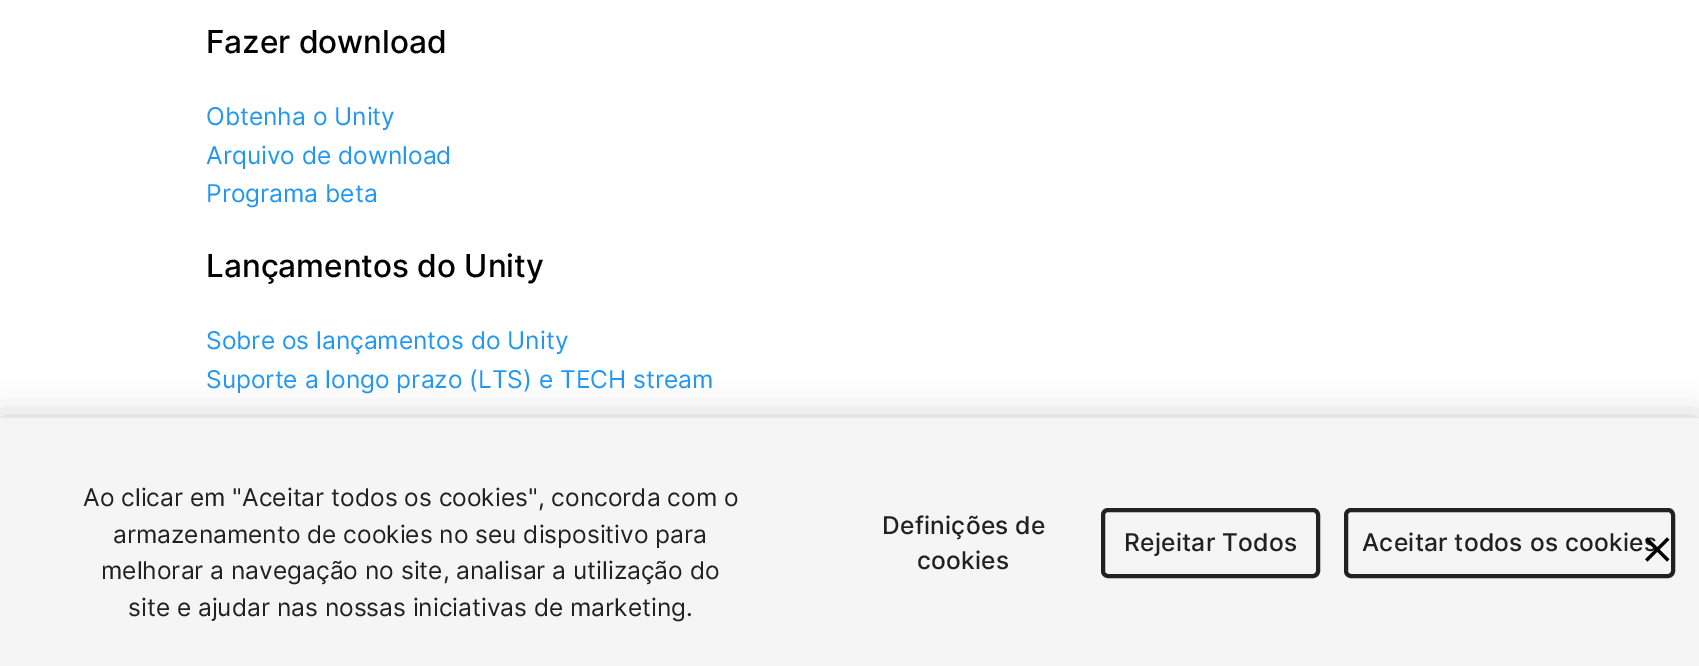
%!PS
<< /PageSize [1699 666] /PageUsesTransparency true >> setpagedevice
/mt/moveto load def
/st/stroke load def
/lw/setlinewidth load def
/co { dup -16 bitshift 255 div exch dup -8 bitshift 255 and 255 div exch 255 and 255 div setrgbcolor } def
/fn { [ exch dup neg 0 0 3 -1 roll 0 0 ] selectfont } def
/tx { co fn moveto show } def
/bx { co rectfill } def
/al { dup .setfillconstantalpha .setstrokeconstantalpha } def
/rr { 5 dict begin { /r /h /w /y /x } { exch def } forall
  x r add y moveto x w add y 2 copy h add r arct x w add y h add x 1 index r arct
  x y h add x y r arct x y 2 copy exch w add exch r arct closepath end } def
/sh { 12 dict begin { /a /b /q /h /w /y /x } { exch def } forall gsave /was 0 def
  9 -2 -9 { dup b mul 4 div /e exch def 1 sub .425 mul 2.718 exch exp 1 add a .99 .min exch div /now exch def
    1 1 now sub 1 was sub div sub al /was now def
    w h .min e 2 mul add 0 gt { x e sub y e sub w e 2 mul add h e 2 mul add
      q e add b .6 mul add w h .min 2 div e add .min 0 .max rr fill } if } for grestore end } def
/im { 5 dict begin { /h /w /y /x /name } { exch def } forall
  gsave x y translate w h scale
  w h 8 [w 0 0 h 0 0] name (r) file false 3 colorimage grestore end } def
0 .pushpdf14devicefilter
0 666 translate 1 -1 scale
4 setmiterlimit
0 0 1699 666 16#FFFFFF bx
16#000000 co
0 418 1699 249 0 16 .2 sh
0 418 1699 248 16#F5F5F5 bx
16#212121 co
4 lw
1103 510 215 66 5 rr st
1346 510 327 66 5 rr st
(Fazer download) 206 53 /Inter-Medium 31.5 16#000000 tx
(Obtenha o Unity) 206 125 /Inter-Regular 24.5 16#2196F3 tx
(Arquivo de download) 206 164 /Inter-Regular 24.5 16#2196F3 tx
(Programa beta) 206 202 /Inter-Regular 24.5 16#2196F3 tx
(Lançamentos do Unity) 206 277 /Inter-Medium 31.5 16#000000 tx
(Sobre os lançamentos do Unity) 206 349 /Inter-Regular 24.5 16#2196F3 tx
(Suporte a longo prazo \(LTS\) e TECH stream) 206 388 /Inter-Regular 24.5 16#2196F3 tx
(Ao clicar em "Aceitar todos os cookies", concorda com o) 83 506 /Inter-Regular 24.5 16#212121 tx
(armazenamento de cookies no seu dispositivo para) 113 543 /Inter-Regular 24.5 16#212121 tx
(melhorar a navegação no site, analisar a utilização do) 101 579 /Inter-Regular 24.5 16#212121 tx
(site e ajudar nas nossas iniciativas de marketing.) 128 616 /Inter-Regular 24.5 16#212121 tx
/Inter-Medium 24.5 fn
882 534 mt .25 0 (Definições de) ashow
917 569 mt .25 0 (cookies) ashow
1124 551 mt .25 0 (Rejeitar Todos) ashow
1362 551 mt .25 0 (Aceitar todos os cookies) ashow
(media/1.raw) 1645 537 25 25 im
.poppdf14devicefilter showpage
